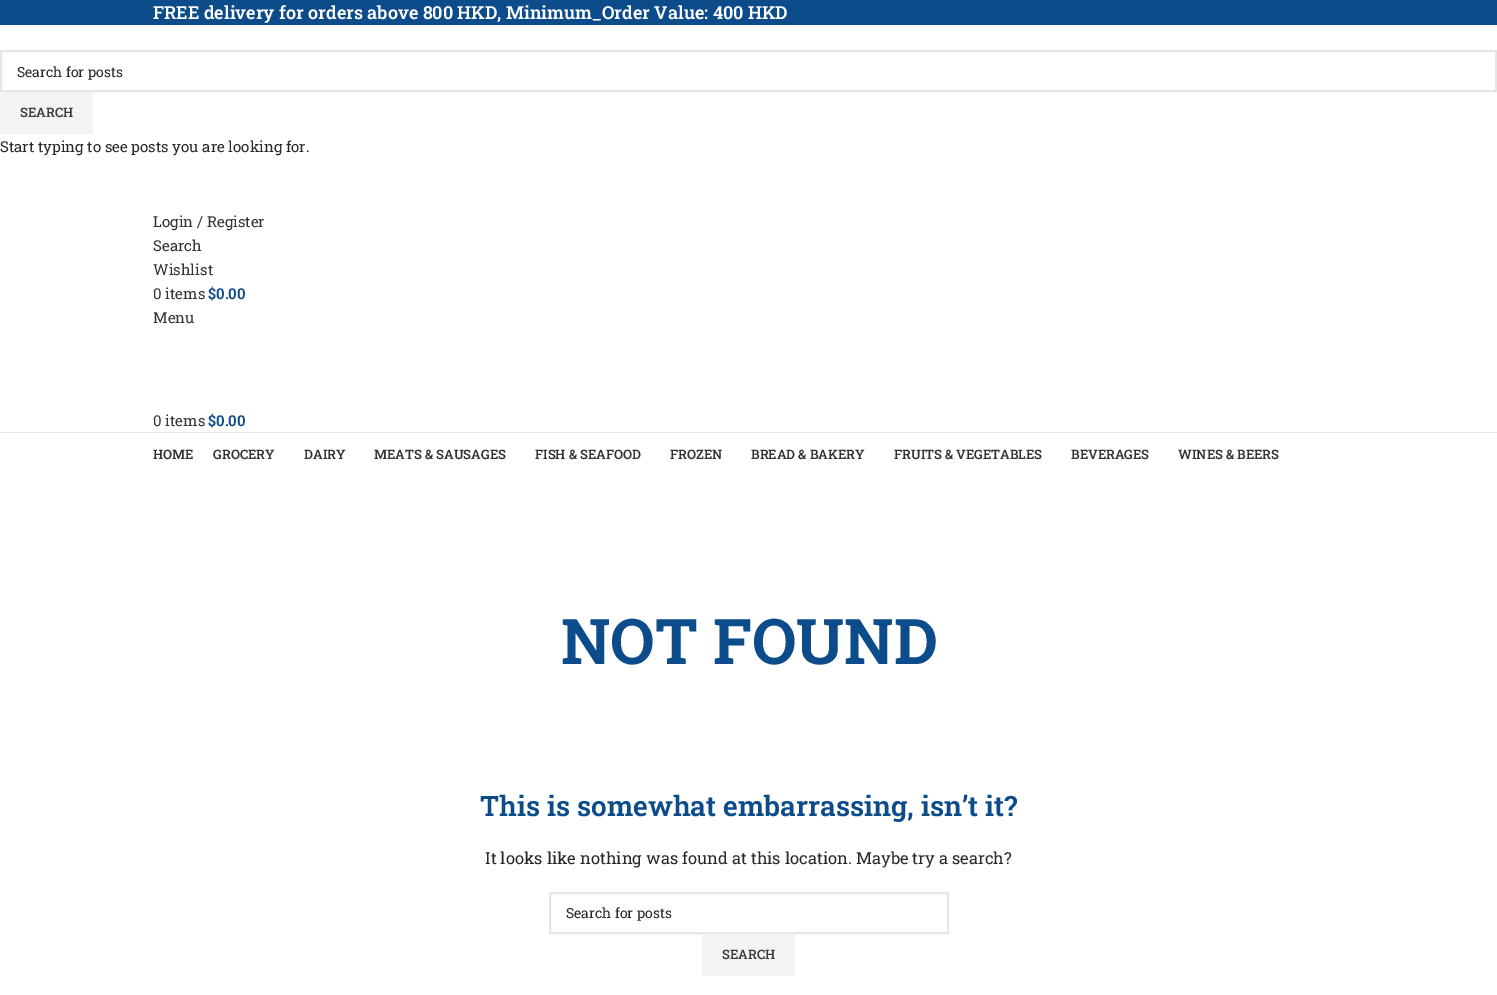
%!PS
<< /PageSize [1497 995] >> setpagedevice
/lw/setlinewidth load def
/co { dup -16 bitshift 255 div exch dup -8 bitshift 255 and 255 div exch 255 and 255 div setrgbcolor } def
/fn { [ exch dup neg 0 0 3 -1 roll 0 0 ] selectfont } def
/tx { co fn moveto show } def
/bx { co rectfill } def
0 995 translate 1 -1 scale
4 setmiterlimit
0 0 1497 995 16#FFFFFF bx
0 0 1497 25 16#0D4C8B bx
0 432 1497 1 16#E6E6E6 bx
2 lw
550 893 398 40 rectstroke
702 934 93 42 16#F3F3F3 bx
16#E6E6E6 co
1 51 1495 40 rectstroke
0 92 93 42 16#F3F3F3 bx
(FREE delivery for orders above 800 HKD, Minimum_Order Value: 400 HKD) 153 19 /RobotoSlab-SemiBold 18 16#FFFFFF tx
(Login / Register) 153 227 /RobotoSlab-Regular 15 16#333333 tx
(Search) 153 251 /RobotoSlab-Regular 15 16#333333 tx
(Wishlist) 153 275 /RobotoSlab-Regular 15 16#333333 tx
(0 items) 153 299 /RobotoSlab-Regular 15 16#333333 tx
($0.00) 208 299 /RobotoSlab-SemiBold 15 16#0D4C8B tx
(Menu) 153 323 /RobotoSlab-Regular 15 16#333333 tx
(0 items) 153 426 /RobotoSlab-Regular 15 16#333333 tx
($0.00) 208 426 /RobotoSlab-SemiBold 15 16#0D4C8B tx
(HOME) 153 459 /RobotoSlab-SemiBold 13 16#333333 tx
(GROCERY) 213 459 /RobotoSlab-SemiBold 13 16#333333 tx
(DAIRY) 304 459 /RobotoSlab-SemiBold 13 16#333333 tx
(MEATS & SAUSAGES) 374 459 /RobotoSlab-SemiBold 13 16#333333 tx
(FISH & SEAFOOD) 535 459 /RobotoSlab-SemiBold 13 16#333333 tx
(FROZEN) 670 459 /RobotoSlab-SemiBold 13 16#333333 tx
(BREAD & BAKERY) 751 459 /RobotoSlab-SemiBold 13 16#333333 tx
(FRUITS & VEGETABLES) 894 459 /RobotoSlab-SemiBold 13 16#333333 tx
(BEVERAGES) 1071 459 /RobotoSlab-SemiBold 13 16#333333 tx
(WINES & BEERS) 1178 459 /RobotoSlab-SemiBold 13 16#333333 tx
(NOT FOUND) 561 664 /RobotoSlab-Bold 63 16#0D4C8B tx
(This is somewhat embarrassing, isn’t it?) 480 816 /RobotoSlab-SemiBold 28 16#0D4C8B tx
(It looks like nothing was found at this location. Maybe try a search?) 485 864 /RobotoSlab-Regular 16.5 16#282828 tx
(Search for posts) 566 918 /RobotoSlab-Regular 14 16#282828 tx
(SEARCH) 722 959 /RobotoSlab-SemiBold 13 16#3E3E3E tx
(Search for posts) 17 77 /RobotoSlab-Regular 14 16#282828 tx
(SEARCH) 20 117 /RobotoSlab-SemiBold 13 16#3E3E3E tx
(Start typing to see posts you are looking for.) 0 152 /RobotoSlab-Regular 15 16#282828 tx
showpage
